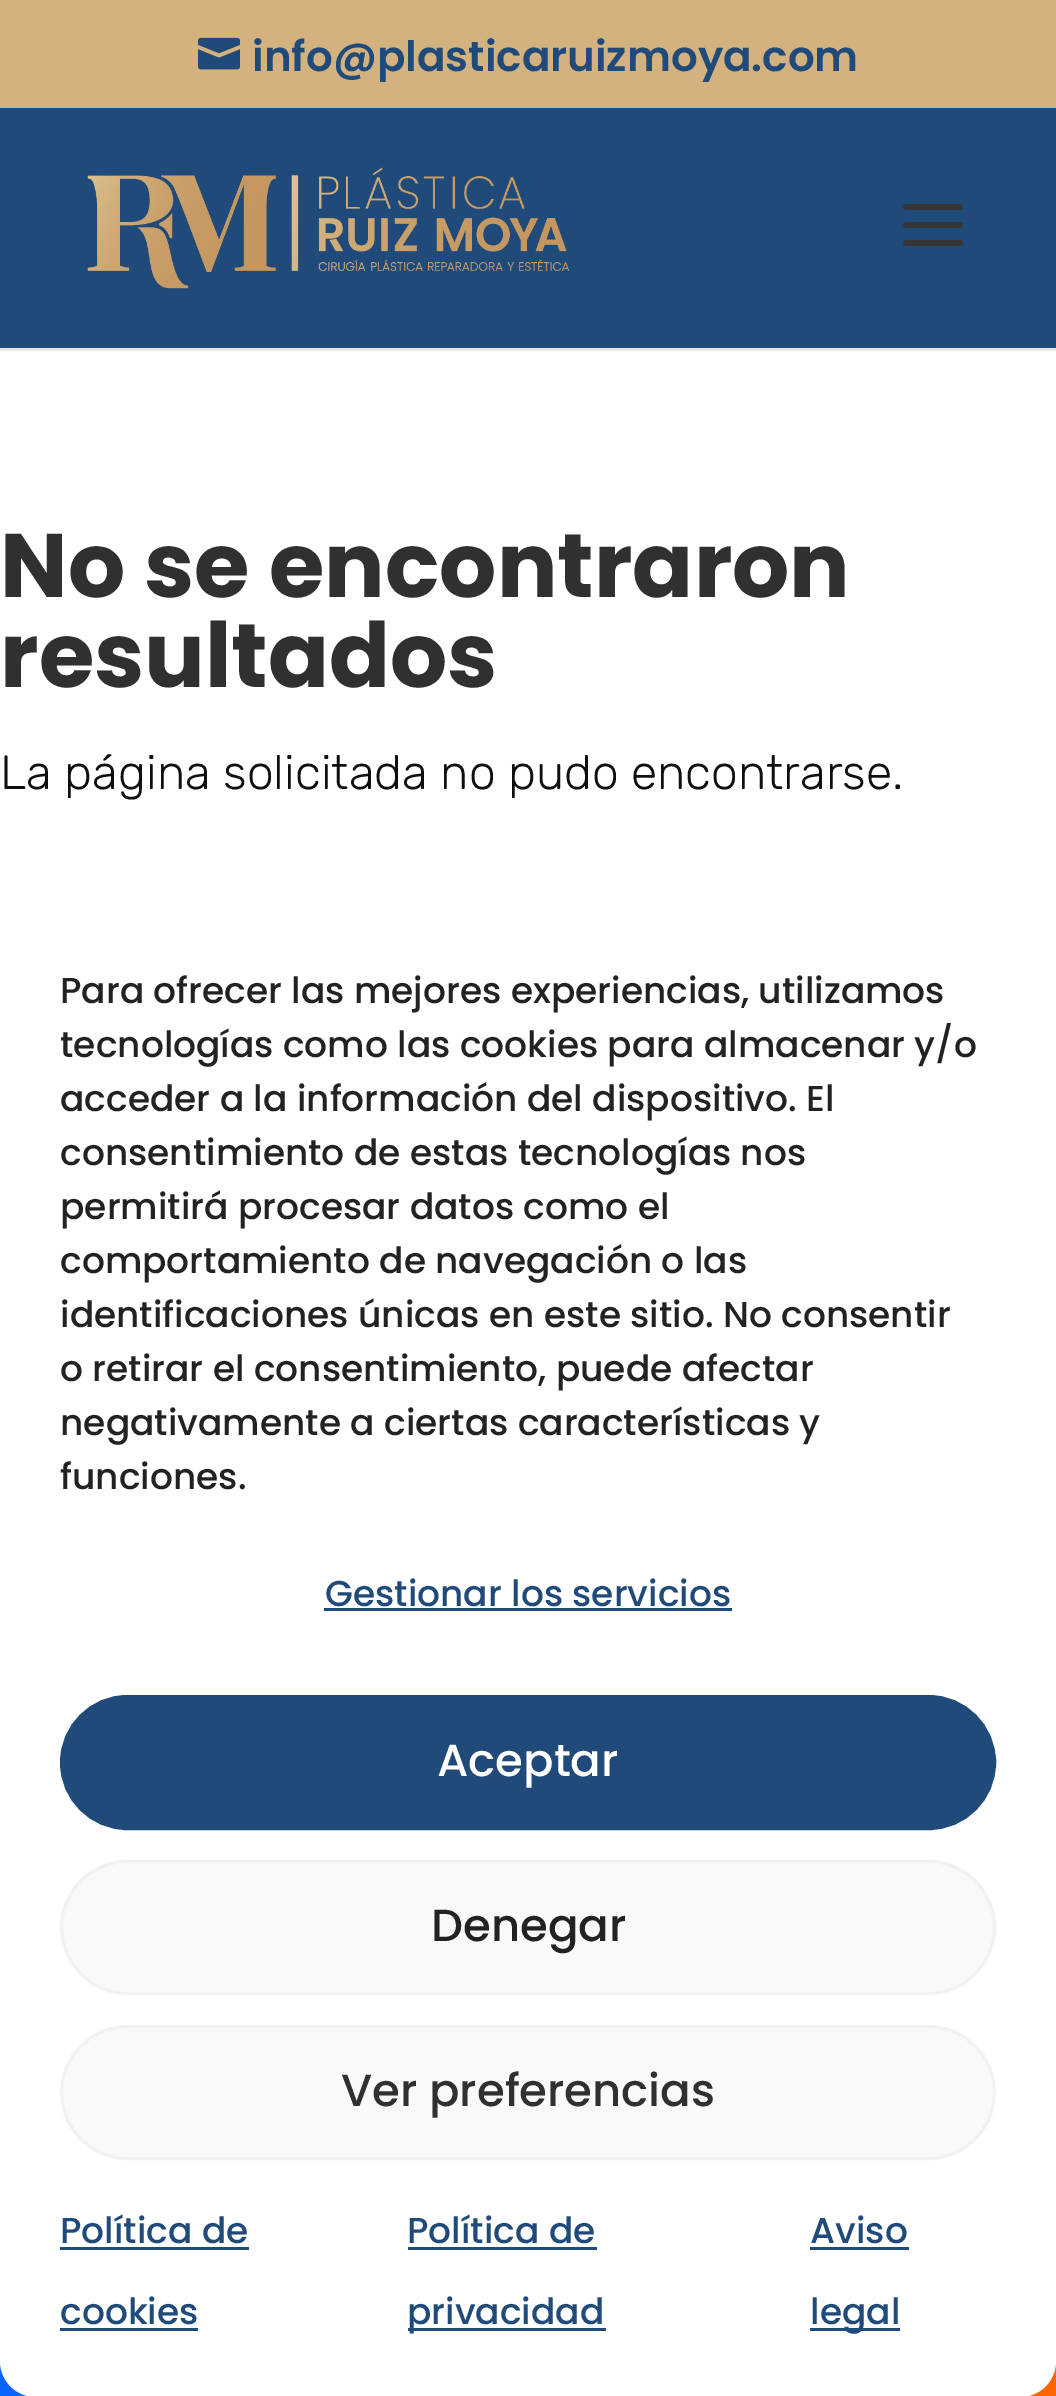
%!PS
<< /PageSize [1056 2396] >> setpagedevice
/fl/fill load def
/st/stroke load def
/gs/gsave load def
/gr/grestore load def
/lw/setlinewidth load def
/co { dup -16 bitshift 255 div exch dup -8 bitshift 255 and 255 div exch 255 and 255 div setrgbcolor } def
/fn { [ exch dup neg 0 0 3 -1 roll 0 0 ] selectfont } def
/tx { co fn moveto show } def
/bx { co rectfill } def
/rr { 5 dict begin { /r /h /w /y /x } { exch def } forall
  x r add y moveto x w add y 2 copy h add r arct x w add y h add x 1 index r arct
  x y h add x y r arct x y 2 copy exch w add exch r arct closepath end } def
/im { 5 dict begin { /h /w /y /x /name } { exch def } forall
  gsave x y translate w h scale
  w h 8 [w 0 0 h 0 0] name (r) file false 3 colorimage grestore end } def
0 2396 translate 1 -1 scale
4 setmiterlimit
0 0 1056 2396 16#FFFFFF bx
0 0 1056 108 16#D3B27F bx
(media/1.raw) 198 37 42 33 im
0 348 1056 3 16#E6E6E6 bx
0 108 1056 240 16#204A79 bx
(media/2.raw) 87 167 483 122 im
(media/3.raw) 903 204 60 42 im
0 2361 28 35 16#0866FF bx
1028 2361 28 35 16#FF6500 bx
16#FFFFFF co
0 858 1056 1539 36 rr fl
324 1608 408 3 16#204A79 bx
61.5 1696.5 933 132 66 rr gs fl gr
3 lw
st
16#F9F9F9 co
61.5 1861.5 933 132 66 rr gs fl gr
16#F2F2F2 co
st
16#F9F9F9 co
61.5 2026.5 933 132 66 rr gs fl gr
16#F2F2F2 co
st
60 2247 189 3 16#204A79 bx
60 2328 138 3 16#204A79 bx
408 2247 189 3 16#204A79 bx
408 2328 198 3 16#204A79 bx
810 2247 99 3 16#204A79 bx
810 2328 90 3 16#204A79 bx
(info@plasticaruizmoya.com) 252 71 /Poppins-SemiBold 42 16#204A79 tx
(No se encontraron) 0 597 /Poppins-Bold 90 16#303030 tx
(resultados) 0 687 /Poppins-Bold 90 16#303030 tx
(La página solicitada no pudo encontrarse.) 0 789 /Rubik-Light 48 16#0F0F0F tx
(Para ofrecer las mejores experiencias, utilizamos) 60 1003 /Poppins-Medium 36 16#222222 tx
(tecnologías como las cookies para almacenar y/o) 60 1057 /Poppins-Medium 36 16#222222 tx
(acceder a la información del dispositivo. El) 60 1111 /Poppins-Medium 36 16#222222 tx
(consentimiento de estas tecnologías nos) 60 1165 /Poppins-Medium 36 16#222222 tx
(permitirá procesar datos como el) 60 1219 /Poppins-Medium 36 16#222222 tx
(comportamiento de navegación o las) 60 1273 /Poppins-Medium 36 16#222222 tx
(identificaciones únicas en este sitio. No consentir) 60 1327 /Poppins-Medium 36 16#222222 tx
(o retirar el consentimiento, puede afectar) 60 1381 /Poppins-Medium 36 16#222222 tx
(negativamente a ciertas características y) 60 1435 /Poppins-Medium 36 16#222222 tx
(funciones.) 60 1489 /Poppins-Medium 36 16#222222 tx
(Gestionar los servicios) 325 1606 /Poppins-Medium 36 16#204A79 tx
(Aceptar) 437 1776 /Poppins-Medium 45 16#FFFFFF tx
(Denegar) 431 1941 /Poppins-Medium 45 16#222222 tx
(Ver preferencias) 341 2106 /Poppins-Medium 45 16#303030 tx
(Política de) 60 2243 /Poppins-Medium 36 16#204A79 tx
(cookies) 60 2324 /Poppins-Medium 36 16#204A79 tx
(Política de) 407 2243 /Poppins-Medium 36 16#204A79 tx
(privacidad) 407 2324 /Poppins-Medium 36 16#204A79 tx
(Aviso) 810 2243 /Poppins-Medium 36 16#204A79 tx
(legal) 810 2324 /Poppins-Medium 36 16#204A79 tx
showpage
